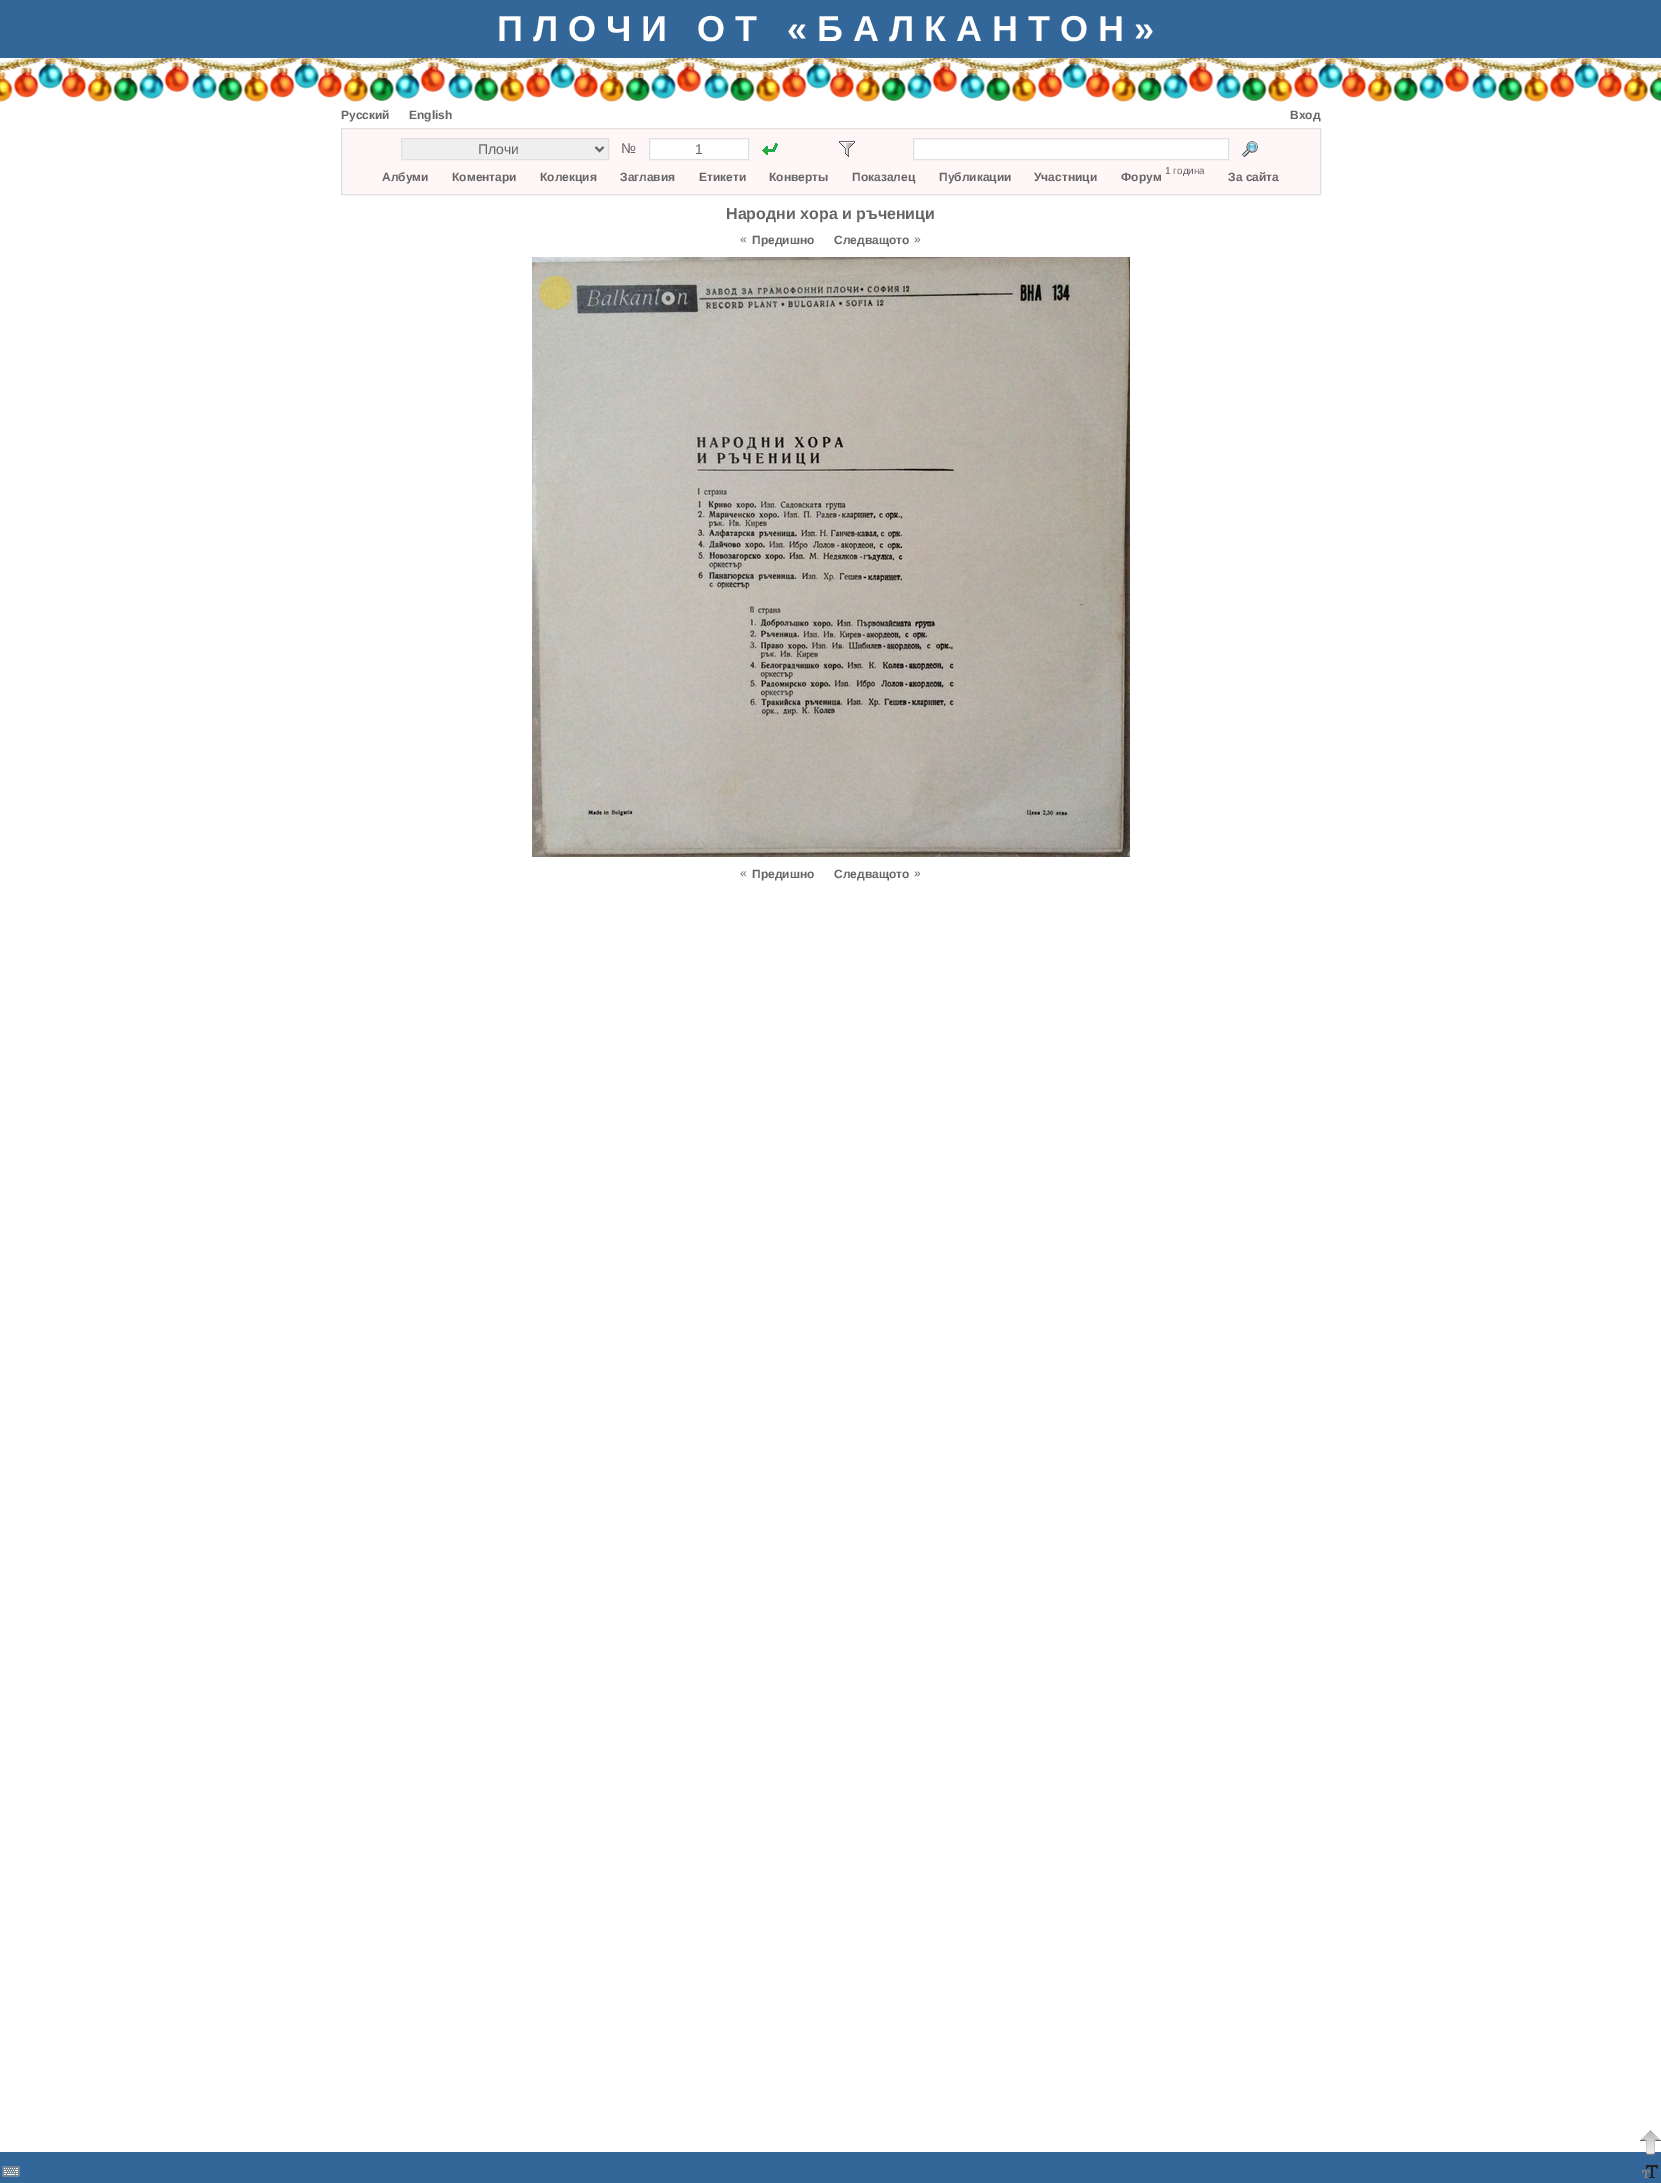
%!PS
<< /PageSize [1661 2183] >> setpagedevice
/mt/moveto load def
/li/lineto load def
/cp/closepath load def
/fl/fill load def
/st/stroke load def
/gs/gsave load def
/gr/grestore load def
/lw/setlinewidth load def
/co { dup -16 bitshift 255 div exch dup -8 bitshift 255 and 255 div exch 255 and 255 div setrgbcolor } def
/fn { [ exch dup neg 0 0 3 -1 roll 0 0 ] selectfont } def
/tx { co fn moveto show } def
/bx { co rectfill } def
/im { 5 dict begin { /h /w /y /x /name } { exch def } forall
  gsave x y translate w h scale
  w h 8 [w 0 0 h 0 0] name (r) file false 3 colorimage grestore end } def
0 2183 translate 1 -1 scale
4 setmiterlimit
0 0 1661 2183 16#FFFFFF bx
0 0 1661 58 16#336699 bx
(media/1.raw) 0 58 1661 44 im
16#FFF7F7 co
341.5 128.5 mt 1320.5 128.5 li 1320.5 194.5 li 341.5 194.5 li cp gs fl gr
16#E0E0E0 co
st
16#EFEFEF co
401.5 138.5 mt 608.5 138.5 li 608.5 159.5 li 401.5 159.5 li cp gs fl gr
16#E0E0E0 co
st
16#666666 co
2 lw
595.5 147 mt 599.5 151 li 603.5 147 li st
16#FFFFFF co
649.5 138.5 mt 748.5 138.5 li 748.5 159.5 li 649.5 159.5 li cp gs fl gr
16#E0E0E0 co
1 lw
st
(media/2.raw) 762 143 16 12 im
(media/3.raw) 839 141 16 16 im
16#FFFFFF co
913.5 138.5 mt 1228.5 138.5 li 1228.5 159.5 li 913.5 159.5 li cp gs fl gr
16#E0E0E0 co
st
(media/4.raw) 1242 141 16 16 im
(media/5.raw) 532 257 598 600 im
0 2152 1661 31 16#336699 bx
(media/6.raw) 1639 2130 22 25 im
(media/7.raw) 2 2166 18 11 im
(media/8.raw) 1642 2165 16 13 im
/LiberationSans-Bold 36 fn
16#FFFFFF co
497 41 mt 10 0 (ПЛОЧИ ОТ «БАЛКАНТОН») ashow
(Русский) 341 119 /LiberationSans-Bold 12 16#666666 tx
(English) 409 119 /LiberationSans-Bold 12 16#666666 tx
(Вход) 1290 119 /LiberationSans-Bold 12 16#666666 tx
(Плочи) 478 154 /LiberationSans-Regular 14 16#666666 tx
(№) 621 153 /LiberationSans-Regular 14 16#666666 tx
(1) 695 154 /LiberationSans-Regular 14 16#666666 tx
(Албуми) 382 181 /LiberationSans-Bold 12 16#666666 tx
(Коментари) 452 181 /LiberationSans-Bold 12 16#666666 tx
(Колекция) 540 181 /LiberationSans-Bold 12 16#666666 tx
(Заглавия) 620 181 /LiberationSans-Bold 12 16#666666 tx
(Етикети) 699 181 /LiberationSans-Bold 12 16#666666 tx
(Конверты) 769 181 /LiberationSans-Bold 12 16#666666 tx
(Показалец) 852 181 /LiberationSans-Bold 12 16#666666 tx
(Публикации) 939 181 /LiberationSans-Bold 12 16#666666 tx
(Участници) 1034 181 /LiberationSans-Bold 12 16#666666 tx
(Форум) 1121 181 /LiberationSans-Bold 12 16#666666 tx
(1 година) 1165 174 /LiberationSans-Regular 10 16#666666 tx
(За сайта) 1228 181 /LiberationSans-Bold 12 16#666666 tx
(Народни хора и ръченици) 726 219 /LiberationSans-Bold 16 16#666666 tx
(«) 740 243 /LiberationSans-Regular 12 16#666666 tx
(Предишно) 752 244 /LiberationSans-Bold 12 16#666666 tx
(Следващото) 834 244 /LiberationSans-Bold 12 16#666666 tx
(») 914 243 /LiberationSans-Regular 12 16#666666 tx
(«) 740 877 /LiberationSans-Regular 12 16#666666 tx
(Предишно) 752 878 /LiberationSans-Bold 12 16#666666 tx
(Следващото) 834 878 /LiberationSans-Bold 12 16#666666 tx
(») 914 877 /LiberationSans-Regular 12 16#666666 tx
showpage
